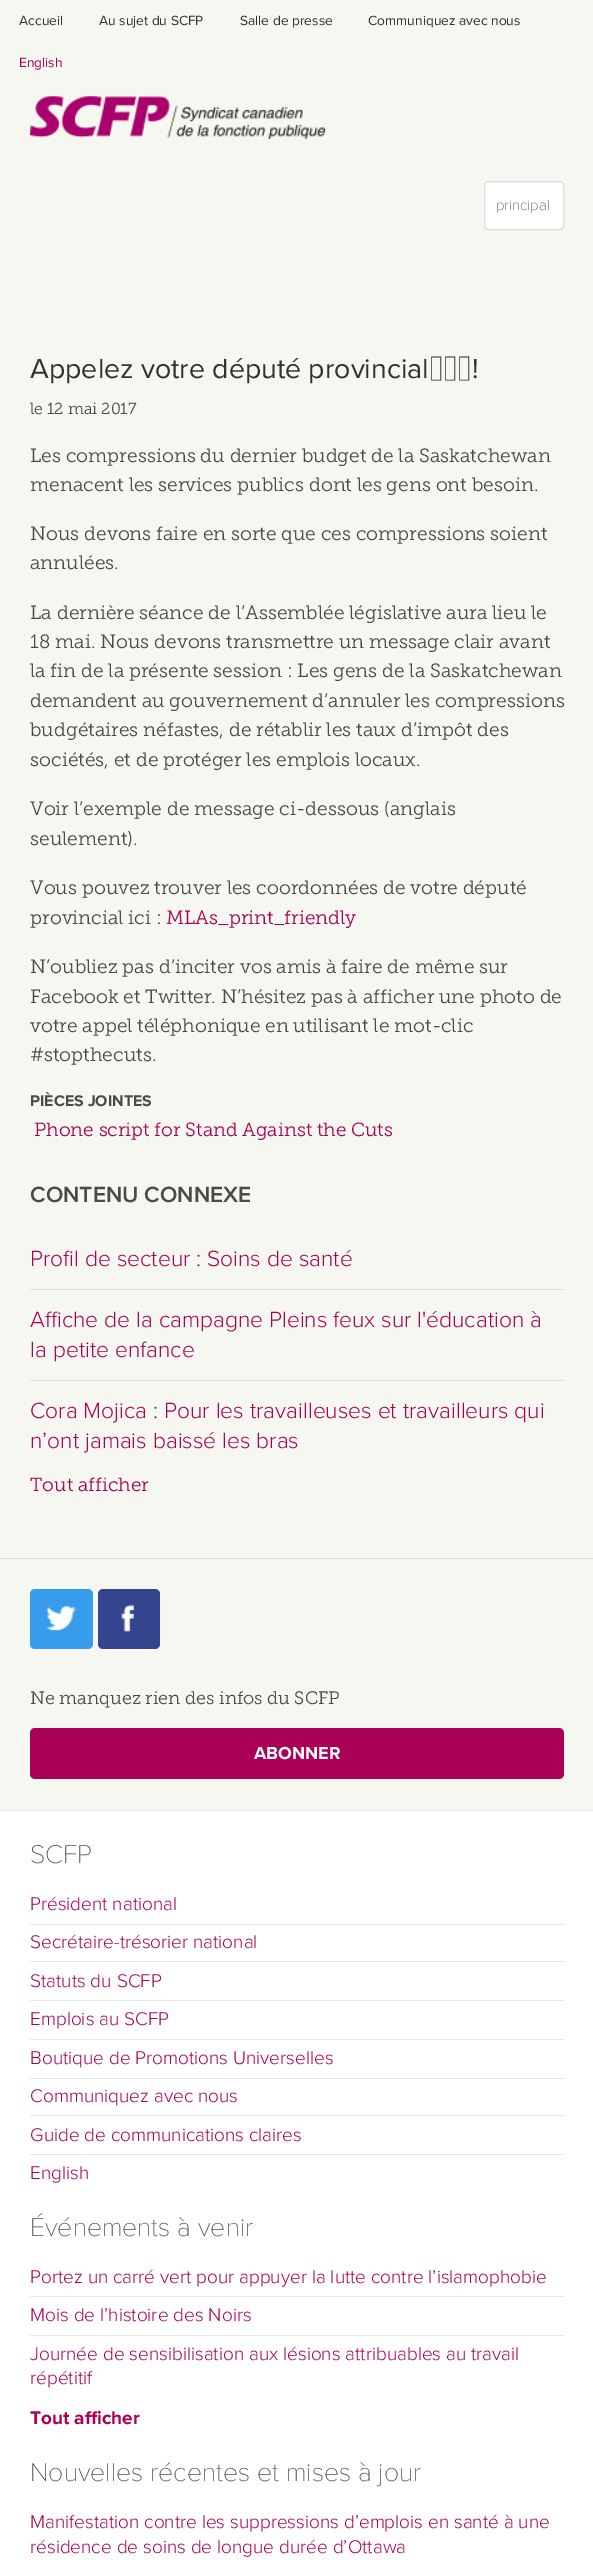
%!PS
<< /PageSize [593 2560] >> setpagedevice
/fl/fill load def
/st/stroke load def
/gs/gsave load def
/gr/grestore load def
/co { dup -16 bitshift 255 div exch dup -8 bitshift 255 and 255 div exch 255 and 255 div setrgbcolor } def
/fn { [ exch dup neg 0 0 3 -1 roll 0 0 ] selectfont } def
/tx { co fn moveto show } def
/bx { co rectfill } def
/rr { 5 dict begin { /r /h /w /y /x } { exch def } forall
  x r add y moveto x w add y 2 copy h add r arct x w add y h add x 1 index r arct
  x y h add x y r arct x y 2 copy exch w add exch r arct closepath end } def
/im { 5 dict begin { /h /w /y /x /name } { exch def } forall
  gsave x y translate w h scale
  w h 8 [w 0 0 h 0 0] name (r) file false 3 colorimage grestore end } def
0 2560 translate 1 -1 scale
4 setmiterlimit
0 0 593 2560 16#F6F7F0 bx
(media/1.raw) 30 96 296 43 im
16#FFFFFF co
484.5 181.5 79 48 3.5 rr gs fl gr
16#DDDDDD co
st
30 1289 534 1 16#DDDDDD bx
30 1380 534 1 16#DDDDDD bx
0 1558 593 1 16#DDDED8 bx
16#369CEB co
30 1589 63 60 5 rr fl
(media/2.raw) 46 1606 31 25 im
16#34448E co
98 1589 62 60 5 rr fl
(media/3.raw) 121 1604 13 28 im
16#AA0056 co
30 1728 534 51 5 rr fl
0 1811 593 749 16#FFFFFF bx
0 1810 593 1 16#E6E6E6 bx
30 1924 534 1 16#E6E6E6 bx
30 1961 534 1 16#E6E6E6 bx
30 2000 534 1 16#E6E6E6 bx
30 2039 534 1 16#E6E6E6 bx
30 2078 534 1 16#E6E6E6 bx
30 2115 534 1 16#E6E6E6 bx
30 2154 534 1 16#E6E6E6 bx
30 2296 534 1 16#E6E6E6 bx
30 2335 534 1 16#E6E6E6 bx
(Accueil) 19 25 /ProximaNova-Regular 13.75 16#323232 tx
(Au sujet du SCFP) 99 25 /ProximaNova-Regular 13.75 16#323232 tx
(Salle de presse) 240 25 /ProximaNova-Regular 13.75 16#323232 tx
(Communiquez avec nous) 368 25 /ProximaNova-Regular 13.75 16#323232 tx
(English) 19 67 /ProximaNova-Regular 13.75 16#AA0056 tx
(principal) 496 210 /ProximaNova-Thin 15 16#4A4A4A tx
(Appelez votre député provincial !) 30 378 /ProximaNova-Regular 28.5 16#323232 tx
(le 12 mai 2017) 30 414 /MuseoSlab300-Light 16 16#4A4A4A tx
(Les compressions du dernier budget de la Saskatchewan) 30 462 /MuseoSlab300-Light 19.2 16#4A4A4A tx
(menacent les services publics dont les gens ont besoin.) 30 491 /MuseoSlab300-Light 19.2 16#4A4A4A tx
(Nous devons faire en sorte que ces compressions soient) 30 540 /MuseoSlab300-Light 19.2 16#4A4A4A tx
(annulées.) 30 569 /MuseoSlab300-Light 19.2 16#4A4A4A tx
(La dernière séance de l’Assemblée législative aura lieu le) 30 619 /MuseoSlab300-Light 19.2 16#4A4A4A tx
(18 mai. Nous devons transmettre un message clair avant) 30 648 /MuseoSlab300-Light 19.2 16#4A4A4A tx
(la fin de la présente session : Les gens de la Saskatchewan) 30 677 /MuseoSlab300-Light 19.2 16#4A4A4A tx
(demandent au gouvernement d’annuler les compressions) 30 707 /MuseoSlab300-Light 19.2 16#4A4A4A tx
(budgétaires néfastes, de rétablir les taux d’impôt des) 30 736 /MuseoSlab300-Light 19.2 16#4A4A4A tx
(sociétés, et de protéger les emplois locaux.) 30 766 /MuseoSlab300-Light 19.2 16#4A4A4A tx
(Voir l’exemple de message ci-dessous \(anglais) 30 815 /MuseoSlab300-Light 19.2 16#4A4A4A tx
(seulement\).) 30 845 /MuseoSlab300-Light 19.2 16#4A4A4A tx
(Vous pouvez trouver les coordonnées de votre député) 30 894 /MuseoSlab300-Light 19.2 16#4A4A4A tx
(provincial ici :) 30 924 /MuseoSlab300-Light 19.2 16#4A4A4A tx
(MLAs_print_friendly) 166 924 /MuseoSlab300-Light 19.2 16#AA0056 tx
(N’oubliez pas d’inciter vos amis à faire de même sur) 30 973 /MuseoSlab300-Light 19.2 16#4A4A4A tx
(Facebook et Twitter. N’hésitez pas à afficher une photo de) 30 1003 /MuseoSlab300-Light 19.2 16#4A4A4A tx
(votre appel téléphonique en utilisant le mot-clic) 30 1032 /MuseoSlab300-Light 19.2 16#4A4A4A tx
(#stopthecuts.) 30 1061 /MuseoSlab300-Light 19.2 16#4A4A4A tx
(PIÈCES JOINTES) 30 1106 /ProximaNova-Bold 16 16#4A4A4A tx
(Phone script for Stand Against the Cuts) 34 1136 /MuseoSlab300-Light 19 16#AA0056 tx
(CONTENU CONNEXE) 30 1202 /ProximaNova-SemiBold 22.8 16#4A4A4A tx
(Profil de secteur : Soins de santé) 30 1266 /ProximaNova-Light 22.8 16#AA0056 tx
(Affiche de la campagne Pleins feux sur l'éducation à) 30 1327 /ProximaNova-Light 22.8 16#AA0056 tx
(la petite enfance) 30 1357 /ProximaNova-Light 22.8 16#AA0056 tx
(Cora Mojica : Pour les travailleuses et travailleurs qui) 30 1418 /ProximaNova-Light 22.8 16#AA0056 tx
(n’ont jamais baissé les bras) 30 1448 /ProximaNova-Light 22.8 16#AA0056 tx
(Tout afficher) 30 1491 /MuseoSlab300-Light 19 16#AA0056 tx
(Ne manquez rien des infos du SCFP) 30 1704 /MuseoSlab300-Light 18 16#4A4A4A tx
(ABONNER) 254 1759 /ProximaNova-Bold 18 16#FFFFFF tx
(SCFP) 30 1863 /ProximaNova-Thin 26.6 16#4A4A4A tx
(Président national) 30 1910 /ProximaNova-Light 19 16#AA0056 tx
(Secrétaire-trésorier national) 30 1948 /ProximaNova-Light 19 16#AA0056 tx
(Statuts du SCFP) 30 1987 /ProximaNova-Light 19 16#AA0056 tx
(Emplois au SCFP) 30 2025 /ProximaNova-Light 19 16#AA0056 tx
(Boutique de Promotions Universelles) 30 2064 /ProximaNova-Light 19 16#AA0056 tx
(Communiquez avec nous) 30 2102 /ProximaNova-Light 19 16#AA0056 tx
(Guide de communications claires) 30 2141 /ProximaNova-Light 19 16#AA0056 tx
(English) 30 2179 /ProximaNova-Light 19 16#AA0056 tx
(Événements à venir) 30 2236 /ProximaNova-Thin 26.6 16#4A4A4A tx
(Portez un carré vert pour appuyer la lutte contre l’islamophobie) 30 2283 /ProximaNova-Light 19 16#AA0056 tx
(Mois de l’histoire des Noirs) 30 2321 /ProximaNova-Light 19 16#AA0056 tx
(Journée de sensibilisation aux lésions attribuables au travail) 30 2360 /ProximaNova-Light 19 16#AA0056 tx
(répétitif) 30 2384 /ProximaNova-Light 19 16#AA0056 tx
(Tout afficher) 30 2424 /ProximaNova-Bold 19 16#AA0056 tx
(Nouvelles récentes et mises à jour) 30 2481 /ProximaNova-Thin 26.6 16#4A4A4A tx
(Manifestation contre les suppressions d’emplois en santé à une) 30 2528 /ProximaNova-Light 19 16#AA0056 tx
(résidence de soins de longue durée d’Ottawa) 30 2553 /ProximaNova-Light 19 16#AA0056 tx
showpage
